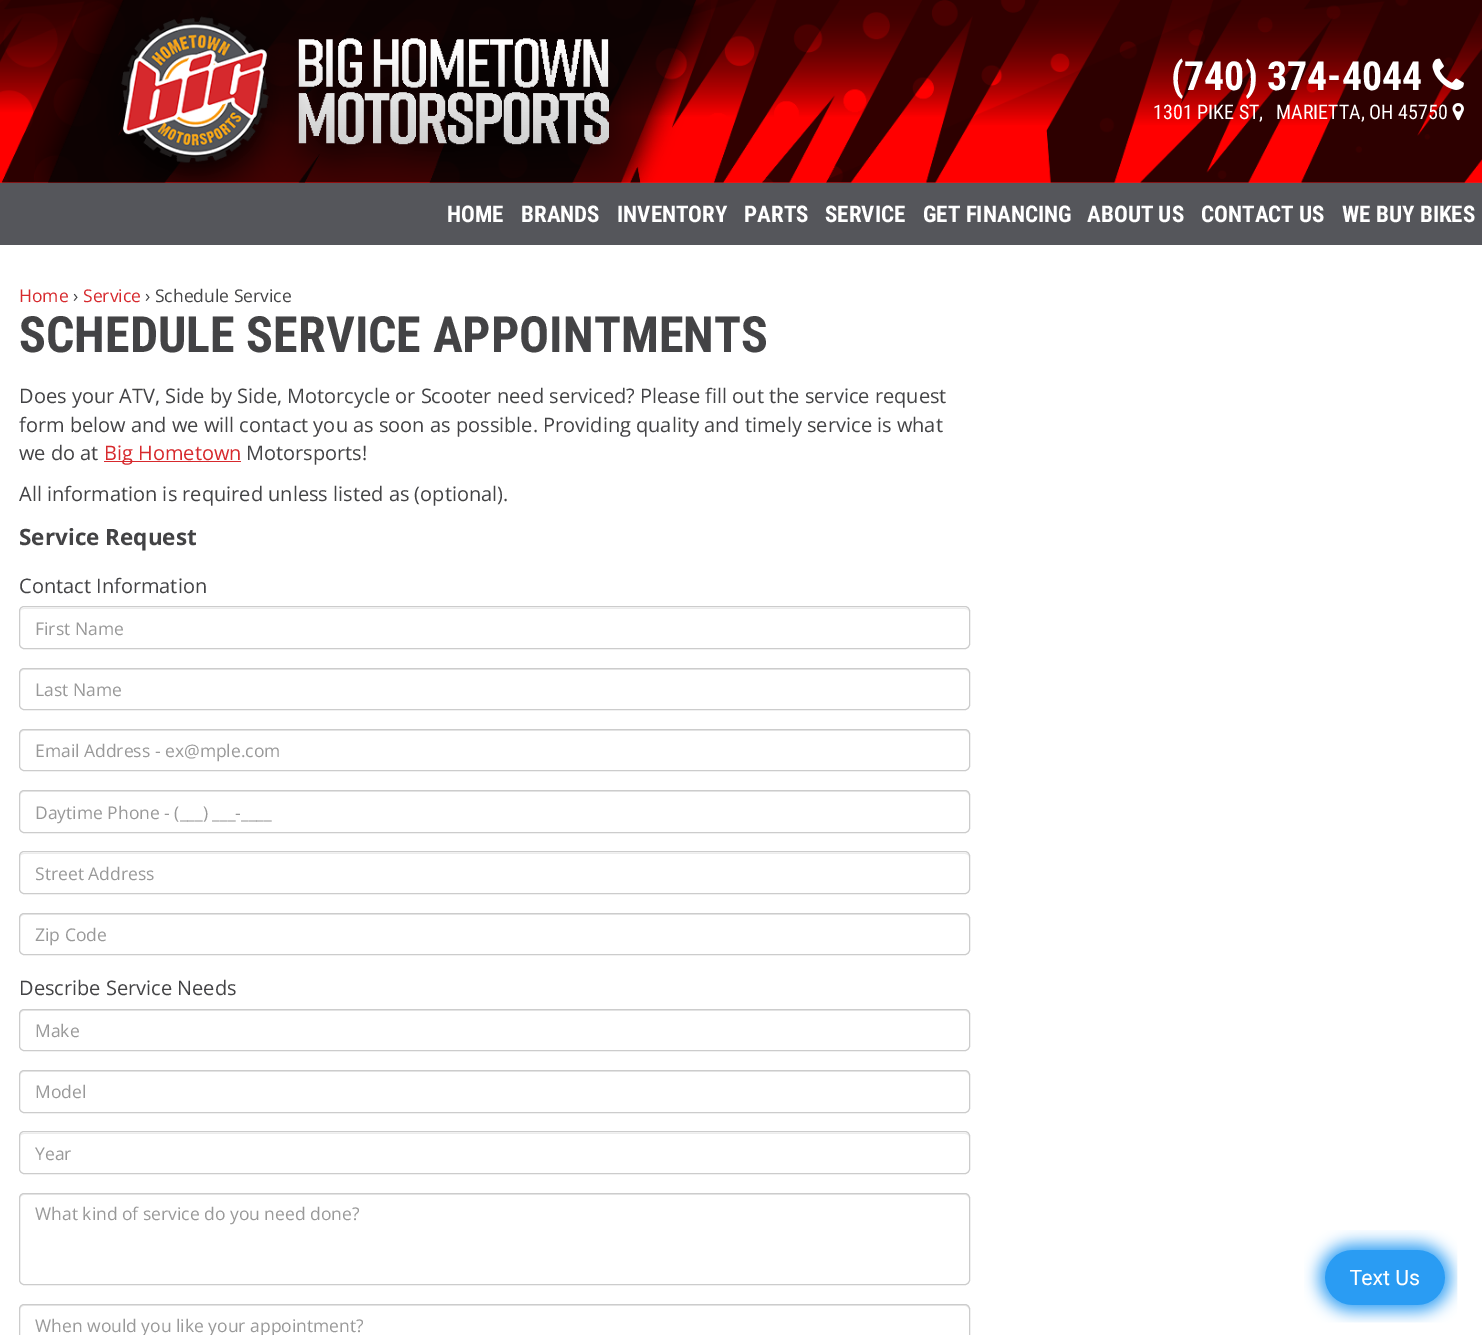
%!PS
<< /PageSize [1482 1335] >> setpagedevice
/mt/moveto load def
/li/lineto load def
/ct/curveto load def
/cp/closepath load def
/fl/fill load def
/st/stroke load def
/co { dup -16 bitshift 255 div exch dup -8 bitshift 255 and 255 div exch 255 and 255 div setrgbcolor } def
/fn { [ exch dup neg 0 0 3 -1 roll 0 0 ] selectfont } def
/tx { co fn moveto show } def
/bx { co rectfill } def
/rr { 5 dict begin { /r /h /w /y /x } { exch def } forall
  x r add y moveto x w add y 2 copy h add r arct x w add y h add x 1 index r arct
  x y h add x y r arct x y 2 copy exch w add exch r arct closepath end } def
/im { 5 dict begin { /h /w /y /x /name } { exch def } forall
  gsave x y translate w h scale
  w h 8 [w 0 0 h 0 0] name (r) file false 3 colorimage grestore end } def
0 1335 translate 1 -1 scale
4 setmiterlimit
0 0 1482 1335 16#FFFFFF bx
0 182 1482 1 16#D7292D bx
(media/1.raw) 0 0 1482 183 im
(media/2.raw) 35 0 676 183 im
(media/3.raw) 1432 58 32 32 im
(media/4.raw) 1452 103 12 18 im
0 183 1482 62 16#55565B bx
104 461 137 1 16#D7292D bx
16#ECECEC co
24 609 mt 965 609 li 967 609 969 610 969 612 ct 969 610 967 608 965 608 ct 24 608 li 22 608 20 610 20 612 ct 20 610 22 609 24 609 ct cp fl
16#CCCCCC co
19.5 606.5 950 42 4.5 rr st
16#ECECEC co
24 670 mt 965 670 li 967 670 969 672 969 674 ct 969 671 968 669 965 669 ct 24 669 li 21 669 20 671 20 674 ct 20 672 22 670 24 670 ct cp fl
16#CCCCCC co
19.5 668.5 950 41 4.5 rr st
16#ECECEC co
24 731 mt 965 731 li 967 731 969 733 969 735 ct 969 732 968 730 965 730 ct 24 730 li 21 730 20 732 20 735 ct 20 733 22 731 24 731 ct cp fl
16#CCCCCC co
19.5 729.5 950 41 4.5 rr st
16#ECECEC co
24 792 mt 965 792 li 967 792 969 794 969 796 ct 969 793 968 791 965 791 ct 24 791 li 21 791 20 793 20 796 ct 20 794 22 792 24 792 ct cp fl
16#CCCCCC co
19.5 790.5 950 42 4.5 rr st
16#ECECEC co
24 854 mt 965 854 li 967 854 969 855 969 858 ct 969 855 968 853 965 853 ct 24 853 li 21 853 20 855 20 858 ct 20 855 22 854 24 854 ct cp fl
16#CCCCCC co
19.5 851.5 950 42 4.5 rr st
16#ECECEC co
24 915 mt 965 915 li 967 915 969 917 969 919 ct 969 916 968 914 965 914 ct 24 914 li 21 914 20 916 20 919 ct 20 917 22 915 24 915 ct cp fl
16#CCCCCC co
19.5 913.5 950 41 4.5 rr st
16#ECECEC co
24 1011 mt 965 1011 li 967 1011 969 1013 969 1015 ct 969 1012 968 1010 965 1010 ct 24 1010 li 21 1010 20 1012 20 1015 ct 20 1013 22 1011 24 1011 ct cp fl
16#CCCCCC co
19.5 1009.5 950 41 4.5 rr st
16#ECECEC co
24 1072 mt 965 1072 li 967 1072 969 1074 969 1076 ct 969 1073 968 1071 965 1071 ct 24 1071 li 21 1071 20 1073 20 1076 ct 20 1074 22 1072 24 1072 ct cp fl
16#CCCCCC co
19.5 1070.5 950 42 4.5 rr st
16#ECECEC co
24 1134 mt 965 1134 li 967 1134 969 1135 969 1138 ct 969 1135 968 1133 965 1133 ct 24 1133 li 21 1133 20 1135 20 1138 ct 20 1135 22 1134 24 1134 ct cp fl
16#CCCCCC co
19.5 1131.5 950 42 4.5 rr st
16#ECECEC co
24 1195 mt 965 1195 li 967 1195 969 1197 969 1199 ct 969 1196 968 1194 965 1194 ct 24 1194 li 21 1194 20 1196 20 1199 ct 20 1197 22 1195 24 1195 ct cp fl
16#CCCCCC co
19.5 1193.5 950 91 4.5 rr st
16#ECECEC co
24 1306 mt 965 1306 li 967 1306 969 1308 969 1310 ct 969 1307 968 1305 965 1305 ct 24 1305 li 21 1305 20 1307 20 1310 ct 20 1308 22 1306 24 1306 ct cp fl
16#CCCCCC co
19.5 1304.5 950 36 4.5 rr st
(media/5.raw) 1304 1230 154 93 im
(\(740\) 374-4044) 1171 90 /RobotoCondensed-Bold 40 16#FFFFFF tx
(1301 PIKE ST,) 1153 119 /RobotoCondensed-Regular 20 16#FFFFFF tx
(MARIETTA, OH 45750) 1276 119 /RobotoCondensed-Regular 20 16#FFFFFF tx
(HOME) 447 222 /RobotoCondensed-Bold 23 16#FFFFFF tx
(BRANDS) 521 222 /RobotoCondensed-Bold 23 16#FFFFFF tx
(INVENTORY) 617 222 /RobotoCondensed-Bold 23 16#FFFFFF tx
(PARTS) 744 222 /RobotoCondensed-Bold 23 16#FFFFFF tx
(SERVICE) 825 222 /RobotoCondensed-Bold 23 16#FFFFFF tx
(GET FINANCING) 923 222 /RobotoCondensed-Bold 23 16#FFFFFF tx
(ABOUT US) 1087 222 /RobotoCondensed-Bold 23 16#FFFFFF tx
(CONTACT US) 1201 222 /RobotoCondensed-Bold 23 16#FFFFFF tx
(WE BUY BIKES) 1342 222 /RobotoCondensed-Bold 23 16#FFFFFF tx
(Home) 19 302 /OpenSans-Regular 17.5 16#D7292D tx
(›) 73 302 /OpenSans-Regular 17.5 16#434345 tx
(Service) 83 302 /OpenSans-Regular 17.5 16#D7292D tx
(› Schedule Service) 145 302 /OpenSans-Regular 17.5 16#434345 tx
(SCHEDULE SERVICE APPOINTMENTS) 19 352 /RobotoCondensed-Bold 50 16#434345 tx
(Does your ATV, Side by Side, Motorcycle or Scooter need serviced? Please fill out the service request) 19 403 /OpenSans-Regular 20 16#434345 tx
(form below and we will contact you as soon as possible. Providing quality and timely service is what) 19 432 /OpenSans-Regular 20 16#434345 tx
(we do at) 19 460 /OpenSans-Regular 20 16#434345 tx
(Big Hometown) 104 460 /OpenSans-Regular 20 16#D7292D tx
(Motorsports!) 246 460 /OpenSans-Regular 20 16#434345 tx
(All information is required unless listed as \(optional\).) 19 501 /OpenSans-Regular 20 16#434345 tx
(Service Request) 19 545 /OpenSans-Bold 22.5 16#434345 tx
(Contact Information) 19 593 /OpenSans-Regular 20 16#434345 tx
(First Name) 35 635 /OpenSans-Regular 17.5 16#999999 tx
(Last Name) 35 696 /OpenSans-Regular 17.5 16#999999 tx
(Email Address - ex@mple.com) 35 757 /OpenSans-Regular 17.5 16#999999 tx
(Daytime Phone - \(___\) ___-____) 35 819 /OpenSans-Regular 17.5 16#999999 tx
(Street Address) 35 880 /OpenSans-Regular 17.5 16#999999 tx
(Zip Code) 35 941 /OpenSans-Regular 17.5 16#999999 tx
(Describe Service Needs) 19 995 /OpenSans-Regular 20 16#434345 tx
(Make) 35 1037 /OpenSans-Regular 17.5 16#999999 tx
(Model) 35 1098 /OpenSans-Regular 17.5 16#999999 tx
(Year) 35 1160 /OpenSans-Regular 17.5 16#999999 tx
(What kind of service do you need done?) 35 1220 /OpenSans-Regular 17.5 16#999999 tx
(When would you like your appointment?) 35 1332 /OpenSans-Regular 17.5 16#999999 tx
showpage
